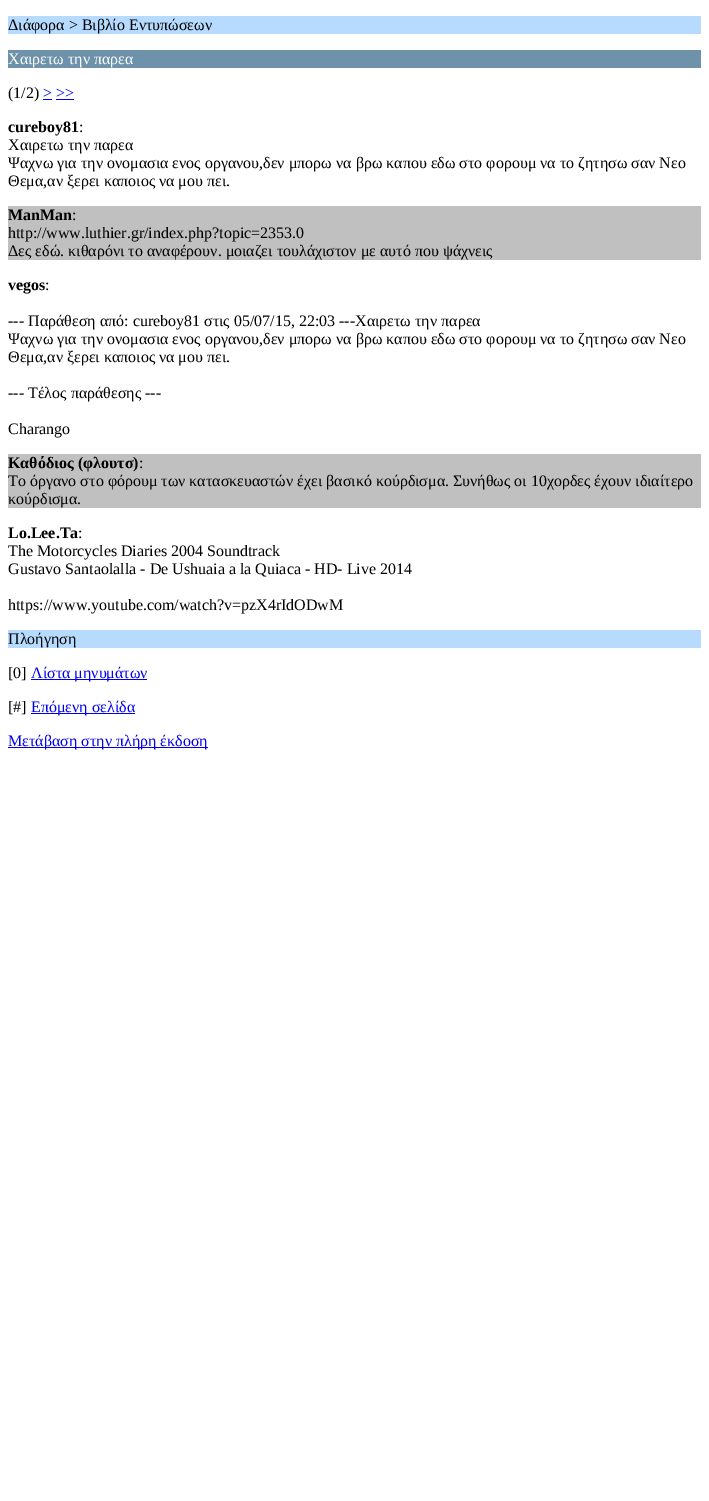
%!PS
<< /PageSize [709 1501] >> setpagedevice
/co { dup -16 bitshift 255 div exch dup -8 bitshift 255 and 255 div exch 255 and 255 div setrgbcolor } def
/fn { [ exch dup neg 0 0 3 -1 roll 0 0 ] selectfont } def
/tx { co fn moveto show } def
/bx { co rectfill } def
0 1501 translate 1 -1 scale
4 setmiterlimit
0 0 709 1501 16#FFFFFF bx
8 16 693 18 16#B6DBFF bx
8 50 693 18 16#6D92AA bx
43 99 9 1 16#0000EE bx
56 99 18 1 16#0000EE bx
8 206 693 54 16#C0C0C0 bx
8 454 693 54 16#C0C0C0 bx
8 630 693 18 16#B6DBFF bx
31 679 116 1 16#0000EE bx
31 713 104 1 16#0000EE bx
8 747 200 1 16#0000EE bx
(Διάφορα > Βιβλίο Εντυπώσεων) 8 30 /LiberationSerif-Regular 16 16#000000 tx
(Χαιρετω την παρεα) 8 64 /LiberationSerif-Regular 16 16#FFFFFF tx
(\(1/2\)) 8 98 /LiberationSerif-Regular 16 16#000000 tx
(> >>) 43 98 /LiberationSerif-Regular 16 16#0000EE tx
(cureboy81) 8 132 /LiberationSerif-Bold 16 16#000000 tx
(:) 79 132 /LiberationSerif-Regular 16 16#000000 tx
(Χαιρετω την παρεα) 8 150 /LiberationSerif-Regular 16 16#000000 tx
(Ψαχνω για την ονομασια ενος οργανου,δεν μπορω να βρω καπου εδω στο φορουμ να το ζητησω σαν Νεο) 8 168 /LiberationSerif-Regular 16 16#000000 tx
(Θεμα,αν ξερει καποιος να μου πει.) 8 186 /LiberationSerif-Regular 16 16#000000 tx
(ManMan) 8 220 /LiberationSerif-Bold 16 16#000000 tx
(:) 72 220 /LiberationSerif-Regular 16 16#000000 tx
(http://www.luthier.gr/index.php?topic=2353.0) 8 238 /LiberationSerif-Regular 16 16#000000 tx
(Δες εδώ. κιθαρόνι το αναφέρουν. μοιαζει τουλάχιστον με αυτό που ψάχνεις) 8 256 /LiberationSerif-Regular 16 16#000000 tx
(vegos) 8 290 /LiberationSerif-Bold 16 16#000000 tx
(:) 45 290 /LiberationSerif-Regular 16 16#000000 tx
(--- Παράθεση από: cureboy81 στις 05/07/15, 22:03 ---Χαιρετω την παρεα) 8 326 /LiberationSerif-Regular 16 16#000000 tx
(Ψαχνω για την ονομασια ενος οργανου,δεν μπορω να βρω καπου εδω στο φορουμ να το ζητησω σαν Νεο) 8 344 /LiberationSerif-Regular 16 16#000000 tx
(Θεμα,αν ξερει καποιος να μου πει.) 8 362 /LiberationSerif-Regular 16 16#000000 tx
(--- Τέλος παράθεσης ---) 8 398 /LiberationSerif-Regular 16 16#000000 tx
(Charango) 8 434 /LiberationSerif-Regular 16 16#000000 tx
(Καθόδιος \(φλουτσ\)) 8 468 /LiberationSerif-Bold 16 16#000000 tx
(:) 139 468 /LiberationSerif-Regular 16 16#000000 tx
(Το όργανο στο φόρουμ των κατασκευαστών έχει βασικό κούρδισμα. Συνήθως οι 10χορδες έχουν ιδιαίτερο) 8 486 /LiberationSerif-Regular 16 16#000000 tx
(κούρδισμα.) 8 504 /LiberationSerif-Regular 16 16#000000 tx
(Lo.Lee.Ta) 8 538 /LiberationSerif-Bold 16 16#000000 tx
(:) 78 538 /LiberationSerif-Regular 16 16#000000 tx
(The Motorcycles Diaries 2004 Soundtrack) 8 556 /LiberationSerif-Regular 16 16#000000 tx
(Gustavo Santaolalla - De Ushuaia a la Quiaca - HD- Live 2014) 8 574 /LiberationSerif-Regular 16 16#000000 tx
(https://www.youtube.com/watch?v=pzX4rIdODwM) 8 610 /LiberationSerif-Regular 16 16#000000 tx
(Πλοήγηση) 8 644 /LiberationSerif-Regular 16 16#000000 tx
([0]) 8 678 /LiberationSerif-Regular 16 16#000000 tx
(Λίστα μηνυμάτων) 31 678 /LiberationSerif-Regular 16 16#0000EE tx
([#]) 8 712 /LiberationSerif-Regular 16 16#000000 tx
(Επόμενη σελίδα) 31 712 /LiberationSerif-Regular 16 16#0000EE tx
(Μετάβαση στην πλήρη έκδοση) 8 746 /LiberationSerif-Regular 16 16#0000EE tx
showpage
